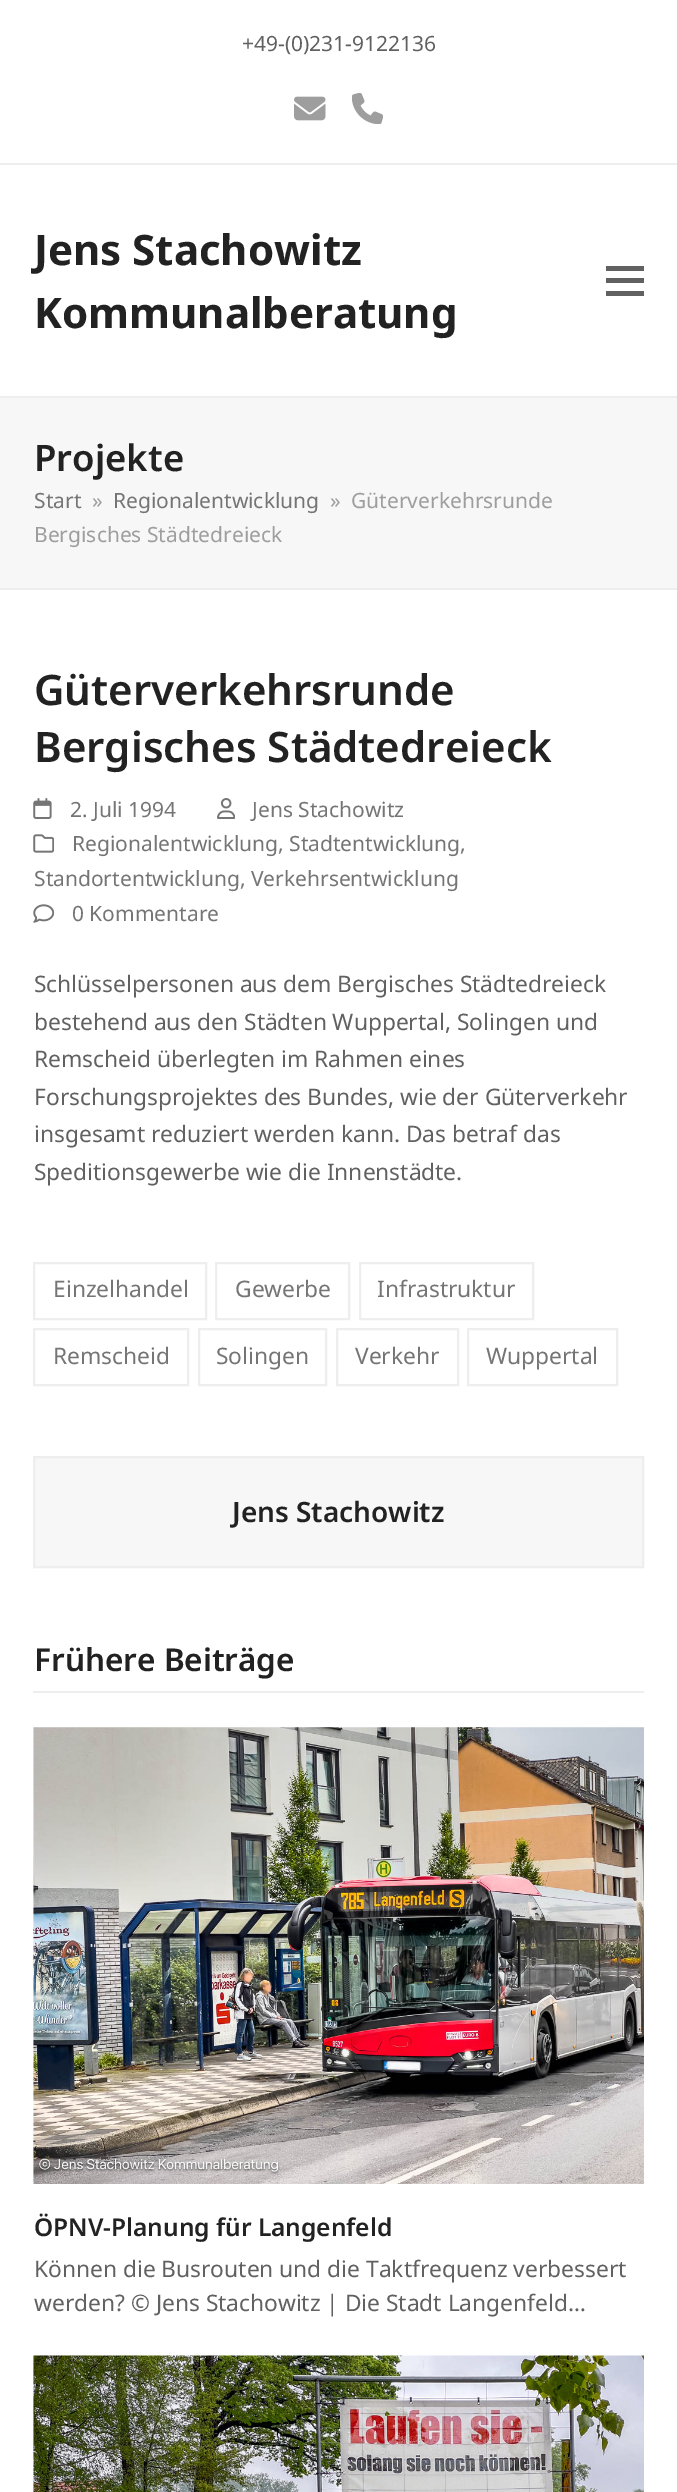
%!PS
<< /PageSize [677 2492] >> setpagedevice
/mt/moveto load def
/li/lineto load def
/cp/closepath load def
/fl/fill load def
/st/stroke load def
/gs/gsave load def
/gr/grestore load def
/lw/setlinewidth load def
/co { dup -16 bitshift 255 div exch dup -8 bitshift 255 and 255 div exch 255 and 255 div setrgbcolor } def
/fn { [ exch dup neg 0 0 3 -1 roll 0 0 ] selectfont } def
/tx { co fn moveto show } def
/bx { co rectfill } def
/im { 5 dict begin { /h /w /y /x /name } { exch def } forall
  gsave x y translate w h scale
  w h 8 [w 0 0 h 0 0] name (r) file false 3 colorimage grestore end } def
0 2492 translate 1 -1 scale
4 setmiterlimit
0 0 677 2492 16#FFFFFF bx
0 163 677 2 16#EEEEEE bx
(media/1.raw) 294 96 32 25 im
(media/2.raw) 352 93 31 31 im
606 278 38 5 16#616161 bx
606 266 38 5 16#616161 bx
606 291 38 5 16#616161 bx
0 398 677 190 16#F7F7F7 bx
0 396 677 2 16#EEEEEE bx
0 588 677 2 16#EEEEEE bx
(media/3.raw) 33 798 19 21 im
(media/4.raw) 217 798 18 21 im
(media/5.raw) 33 834 21 19 im
(media/6.raw) 33 904 21 19 im
2 lw
34 1263 172 56 rectstroke
216 1263 133 56 rectstroke
360 1263 173 56 rectstroke
34 1329 154 56 rectstroke
199 1329 127 56 rectstroke
337 1329 121 56 rectstroke
468 1329 149 56 rectstroke
16#F7F7F7 co
34 1457 mt 643 1457 li 643 1567 li 34 1567 li cp gs fl gr
16#EEEEEE co
st
33 1691 611 2 16#EEEEEE bx
(media/7.raw) 33 1727 611 457 im
(media/8.raw) 33 2355 611 137 im
(+49-\(0\)231-9122136) 242 51 /NotoSans-Regular 21 16#616161 tx
(Jens Stachowitz) 34 265 /NotoSans-Bold 42 16#222222 tx
(Kommunalberatung) 34 328 /NotoSans-Bold 42 16#222222 tx
(Projekte) 34 471 /NotoSans-SemiBold 36.5 16#222222 tx
(Start) 34 508 /NotoSans-Regular 21 16#757575 tx
(») 92 508 /NotoSans-Regular 21 16#9E9E9E tx
(Regionalentwicklung) 113 508 /NotoSans-Regular 21 16#757575 tx
(») 330 508 /NotoSans-Regular 21 16#9E9E9E tx
(Güterverkehrsrunde) 351 508 /NotoSans-Regular 21 16#9E9E9E tx
(Bergisches Städtedreieck) 34 542 /NotoSans-Regular 21 16#9E9E9E tx
(Güterverkehrsrunde) 34 705 /NotoSans-SemiBold 42 16#222222 tx
(Bergisches Städtedreieck) 34 762 /NotoSans-SemiBold 42 16#222222 tx
(2. Juli 1994) 70 817 /NotoSans-Regular 21 16#757575 tx
(Jens Stachowitz) 252 817 /NotoSans-Regular 21 16#757575 tx
(Regionalentwicklung, Stadtentwicklung,) 72 851 /NotoSans-Regular 21 16#757575 tx
(Standortentwicklung, Verkehrsentwicklung) 34 886 /NotoSans-Regular 21 16#757575 tx
(0 Kommentare) 72 921 /NotoSans-Regular 21 16#757575 tx
(Schlüsselpersonen aus dem Bergisches Städtedreieck) 34 992 /NotoSans-Regular 22.75 16#616161 tx
(bestehend aus den Städten Wuppertal, Solingen und) 34 1030 /NotoSans-Regular 22.75 16#616161 tx
(Remscheid überlegten im Rahmen eines) 34 1067 /NotoSans-Regular 22.75 16#616161 tx
(Forschungsprojektes des Bundes, wie der Güterverkehr) 34 1105 /NotoSans-Regular 22.75 16#616161 tx
(insgesamt reduziert werden kann. Das betraf das) 34 1142 /NotoSans-Regular 22.75 16#616161 tx
(Speditionsgewerbe wie die Innenstädte.) 34 1180 /NotoSans-Regular 22.75 16#616161 tx
(Einzelhandel) 53 1297 /NotoSans-Regular 22.75 16#757575 tx
(Gewerbe) 235 1297 /NotoSans-Regular 22.75 16#757575 tx
(Infrastruktur) 377 1297 /NotoSans-Regular 22.75 16#757575 tx
(Remscheid) 53 1364 /NotoSans-Regular 22.75 16#757575 tx
(Solingen) 216 1364 /NotoSans-Regular 22.75 16#757575 tx
(Verkehr) 355 1364 /NotoSans-Regular 22.75 16#757575 tx
(Wuppertal) 486 1364 /NotoSans-Regular 22.75 16#757575 tx
(Jens Stachowitz) 232 1522 /NotoSans-SemiBold 28 16#222222 tx
(Frühere Beiträge) 34 1671 /NotoSans-SemiBold 31.5 16#222222 tx
(ÖPNV-Planung für Langenfeld) 34 2236 /NotoSans-SemiBold 24.5 16#222222 tx
(Können die Busrouten und die Taktfrequenz verbessert) 34 2277 /NotoSans-Regular 22.75 16#616161 tx
(werden? © Jens Stachowitz | Die Stadt Langenfeld…) 34 2311 /NotoSans-Regular 22.75 16#616161 tx
showpage
